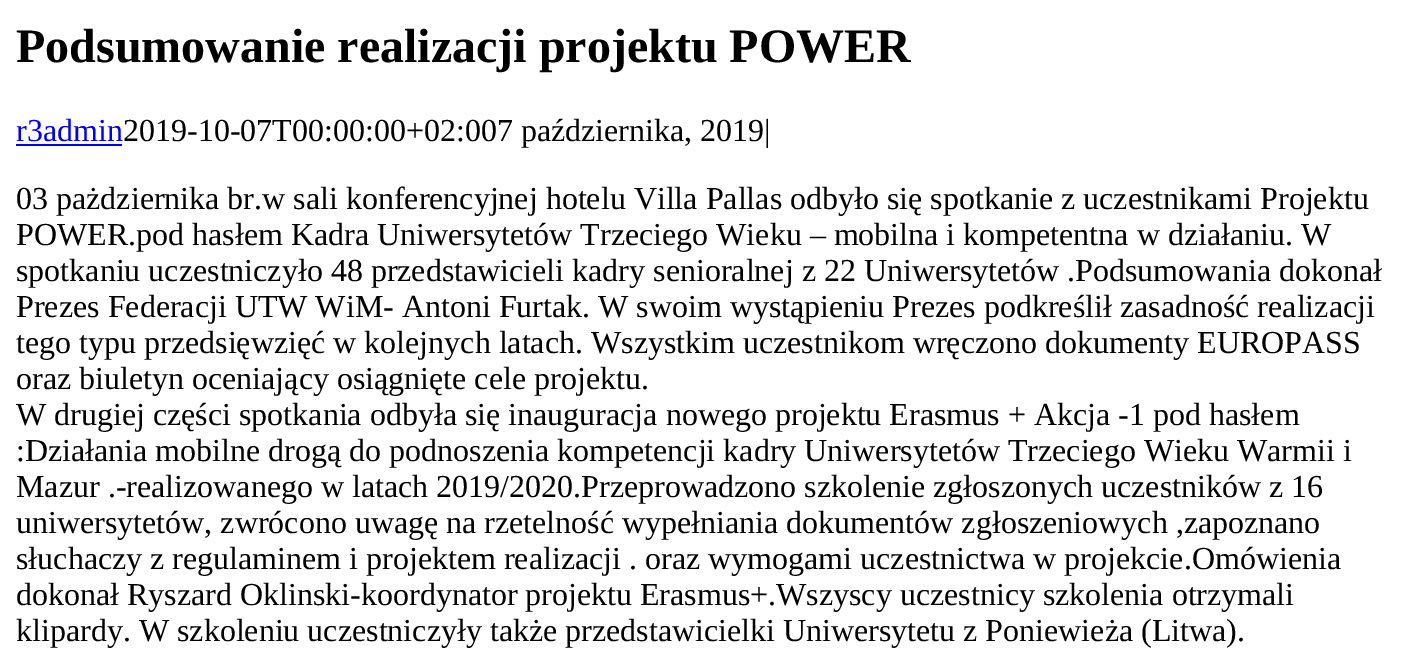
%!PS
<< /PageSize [1413 661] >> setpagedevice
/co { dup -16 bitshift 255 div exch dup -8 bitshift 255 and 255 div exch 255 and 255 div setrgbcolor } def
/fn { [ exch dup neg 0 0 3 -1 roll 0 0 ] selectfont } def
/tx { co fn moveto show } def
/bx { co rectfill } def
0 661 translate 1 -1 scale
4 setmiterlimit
0 0 1413 661 16#FFFFFF bx
16 144 106 2 16#0000EE bx
(Podsumowanie realizacji projektu POWER) 16 62 /LiberationSerif-Bold 48 16#000000 tx
(r3admin) 16 141 /LiberationSerif-Regular 32 16#0000EE tx
(2019-10-07T00:00:00+02:007 października, 2019|) 123 141 /LiberationSerif-Regular 32 16#000000 tx
(03 pażdziernika br.w sali konferencyjnej hotelu Villa Pallas odbyło się spotkanie z uczestnikami Projektu) 16 209 /LiberationSerif-Regular 32 16#000000 tx
(POWER.pod hasłem Kadra Uniwersytetów Trzeciego Wieku – mobilna i kompetentna w działaniu. W) 16 245 /LiberationSerif-Regular 32 16#000000 tx
(spotkaniu uczestniczyło 48 przedstawicieli kadry senioralnej z 22 Uniwersytetów .Podsumowania dokonał) 16 281 /LiberationSerif-Regular 32 16#000000 tx
(Prezes Federacji UTW WiM- Antoni Furtak. W swoim wystąpieniu Prezes podkreślił zasadność realizacji) 16 317 /LiberationSerif-Regular 32 16#000000 tx
(tego typu przedsięwzięć w kolejnych latach. Wszystkim uczestnikom wręczono dokumenty EUROPASS) 16 353 /LiberationSerif-Regular 32 16#000000 tx
(oraz biuletyn oceniający osiągnięte cele projektu.) 16 389 /LiberationSerif-Regular 32 16#000000 tx
(W drugiej części spotkania odbyła się inauguracja nowego projektu Erasmus + Akcja -1 pod hasłem) 16 425 /LiberationSerif-Regular 32 16#000000 tx
(:Działania mobilne drogą do podnoszenia kompetencji kadry Uniwersytetów Trzeciego Wieku Warmii i) 16 461 /LiberationSerif-Regular 32 16#000000 tx
(Mazur .-realizowanego w latach 2019/2020.Przeprowadzono szkolenie zgłoszonych uczestników z 16) 16 497 /LiberationSerif-Regular 32 16#000000 tx
(uniwersytetów, zwrócono uwagę na rzetelność wypełniania dokumentów zgłoszeniowych ,zapoznano) 16 533 /LiberationSerif-Regular 32 16#000000 tx
(słuchaczy z regulaminem i projektem realizacji . oraz wymogami uczestnictwa w projekcie.Omówienia) 16 569 /LiberationSerif-Regular 32 16#000000 tx
(dokonał Ryszard Oklinski-koordynator projektu Erasmus+.Wszyscy uczestnicy szkolenia otrzymali) 16 605 /LiberationSerif-Regular 32 16#000000 tx
(klipardy. W szkoleniu uczestniczyły także przedstawicielki Uniwersytetu z Poniewieża \(Litwa\).) 16 641 /LiberationSerif-Regular 32 16#000000 tx
showpage
